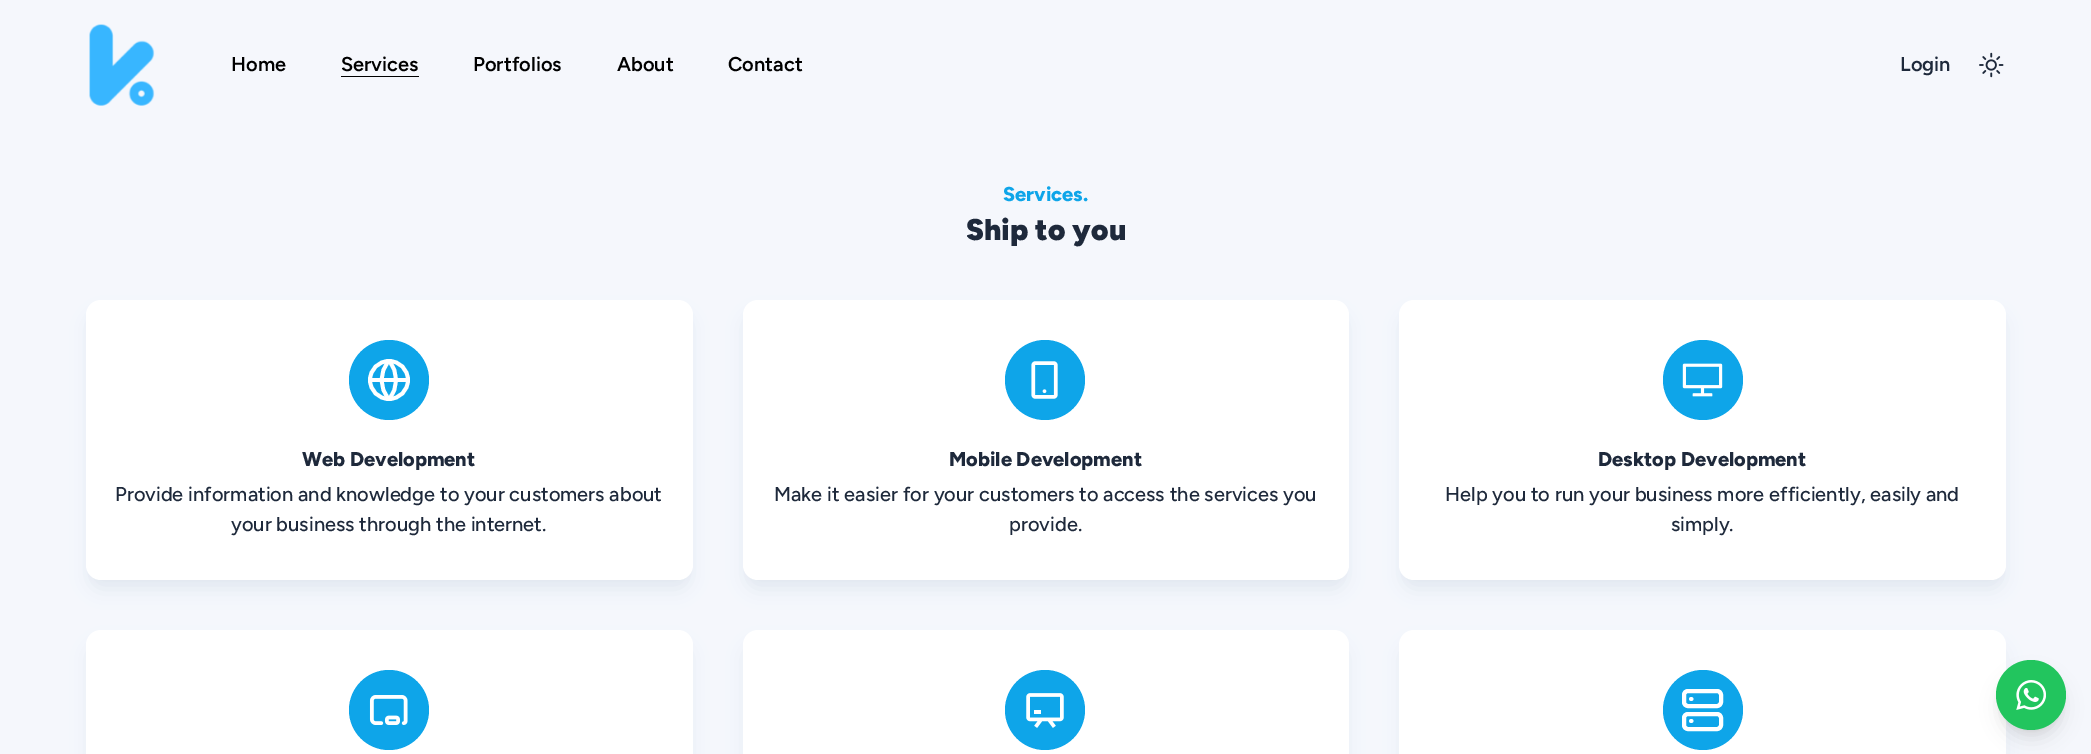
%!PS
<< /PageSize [2091 754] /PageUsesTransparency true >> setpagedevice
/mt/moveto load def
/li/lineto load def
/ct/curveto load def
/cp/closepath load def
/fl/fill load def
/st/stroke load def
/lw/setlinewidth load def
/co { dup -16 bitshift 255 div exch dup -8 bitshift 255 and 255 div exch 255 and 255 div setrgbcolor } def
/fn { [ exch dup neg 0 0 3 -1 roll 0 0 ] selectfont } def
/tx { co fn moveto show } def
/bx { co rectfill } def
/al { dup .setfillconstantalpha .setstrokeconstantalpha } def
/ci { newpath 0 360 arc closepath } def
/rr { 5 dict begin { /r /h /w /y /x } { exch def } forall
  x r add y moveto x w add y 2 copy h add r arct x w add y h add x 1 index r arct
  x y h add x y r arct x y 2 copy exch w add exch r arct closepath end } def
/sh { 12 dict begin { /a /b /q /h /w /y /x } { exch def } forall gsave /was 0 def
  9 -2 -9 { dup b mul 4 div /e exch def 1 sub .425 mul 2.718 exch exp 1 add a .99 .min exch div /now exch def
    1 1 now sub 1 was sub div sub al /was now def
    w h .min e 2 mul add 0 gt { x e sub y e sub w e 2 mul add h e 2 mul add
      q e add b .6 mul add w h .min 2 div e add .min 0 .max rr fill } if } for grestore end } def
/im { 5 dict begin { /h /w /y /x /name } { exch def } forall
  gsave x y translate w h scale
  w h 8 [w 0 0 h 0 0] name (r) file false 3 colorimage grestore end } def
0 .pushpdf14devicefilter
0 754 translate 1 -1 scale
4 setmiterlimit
0 0 2091 754 16#F5F7FC bx
(media/1.raw) 89 24 66 82 im
341 76 78 1 16#000000 bx
(media/2.raw) 1979 52 25 26 im
16#E2E8F0 co
91 310 597 270 10 4 1 sh
90 316 599 273 11 9.5 1 sh
16#FFFFFF co
86 300 607 280 15 rr fl
16#0EA5E9 co
389 380 40 ci fl
16#FFFFFF co
3.8 lw
389 380 19 ci st
1 setlinecap
1 setlinejoin
370 380 mt 407.5 380 li 389 361 mt 398.5 372 398.5 388 389 399 ct 379 388 379 372 389 361 ct cp st
16#E2E8F0 co
748 310 596 270 10 4 1 sh
746 316 599 273 11 9.5 1 sh
16#FFFFFF co
743 300 606 280 15 rr fl
16#0EA5E9 co
1045 380 40 ci fl
(media/3.raw) 1031 361 27 38 im
16#E2E8F0 co
1404 310 597 270 10 4 1 sh
1403 316 600 273 11 9.5 1 sh
16#FFFFFF co
1399 300 607 280 15 rr fl
16#0EA5E9 co
1703 380 40 ci fl
(media/4.raw) 1682 363 41 34 im
16#E2E8F0 co
90 646 599 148 11 9.5 1 sh
16#FFFFFF co
86 630 607 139 15 rr fl
16#0EA5E9 co
389 710 40 ci fl
(media/5.raw) 369 695 39 30 im
16#E2E8F0 co
746 646 599 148 11 9.5 1 sh
16#FFFFFF co
743 630 606 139 15 rr fl
16#0EA5E9 co
1045 710 40 ci fl
(media/6.raw) 1026 693 38 35 im
16#E2E8F0 co
1403 646 600 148 11 9.5 1 sh
16#FFFFFF co
1399 630 607 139 15 rr fl
16#0EA5E9 co
1703 710 40 ci fl
16#FFFFFF co
4 lw
0 setlinecap
0 setlinejoin
1684 691 37 15 4 rr st
1684 714 37 15 4 rr st
3.8 lw
1 setlinecap
1 setlinejoin
1691 699 mt 1691.5 699 li 1691 721 mt 1691.5 721 li st
16#000000 co
2001 670 60 60 30 4 .1 sh
2000 676 63 63 31.5 9.5 .1 sh
16#22C55E co
2031 695 35 ci fl
(media/7.raw) 2016 680 30 30 im
(Home) 231 71 /Figtree-SemiBold 20 16#000000 tx
(Services) 341 71 /Figtree-SemiBold 20 16#000000 tx
(Portfolios) 473 71 /Figtree-SemiBold 20 16#000000 tx
(About) 617 71 /Figtree-SemiBold 20 16#000000 tx
(Contact) 728 71 /Figtree-SemiBold 20 16#000000 tx
(Login) 1900 71 /Figtree-SemiBold 20 16#1E293B tx
(Services.) 1003 201 /Figtree-ExtraBold 20 16#0EA5E9 tx
(Ship to you) 966 240 /Figtree-Light 30 16#1E293B tx
(Web Development) 302 466 /Figtree-ExtraBold 20 16#1E293B tx
(Provide information and knowledge to your customers about) 115 501 /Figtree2-Light 20 16#1E293B tx
(your business through the internet.) 231 531 /Figtree2-Light 20 16#1E293B tx
(Mobile Development) 949 466 /Figtree-ExtraBold 20 16#1E293B tx
(Make it easier for your customers to access the services you) 774 501 /Figtree2-Light 20 16#1E293B tx
(provide.) 1009 531 /Figtree2-Light 20 16#1E293B tx
(Desktop Development) 1598 466 /Figtree-ExtraBold 20 16#1E293B tx
(Help you to run your business more efficiently, easily and) 1445 501 /Figtree2-Light 20 16#1E293B tx
(simply.) 1671 531 /Figtree2-Light 20 16#1E293B tx
.poppdf14devicefilter showpage
